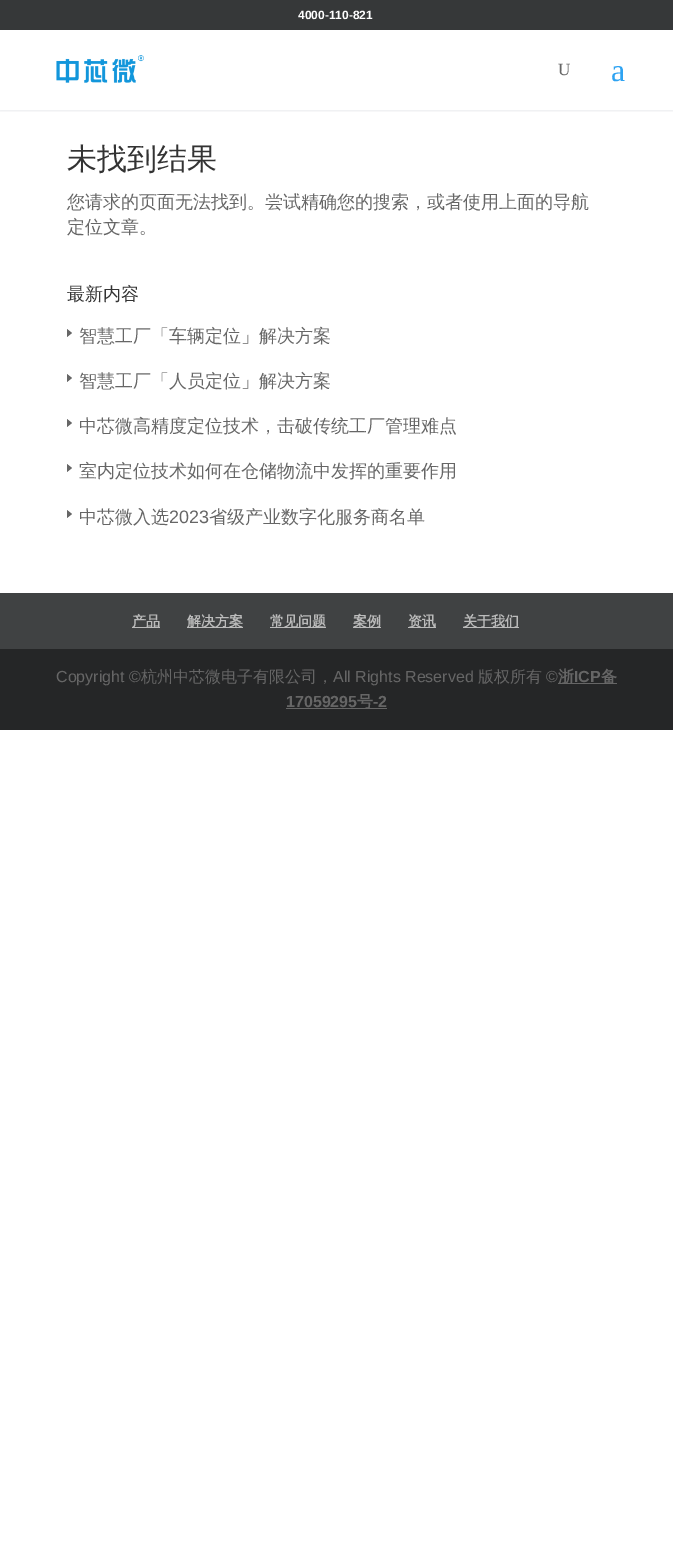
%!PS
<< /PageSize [673 1548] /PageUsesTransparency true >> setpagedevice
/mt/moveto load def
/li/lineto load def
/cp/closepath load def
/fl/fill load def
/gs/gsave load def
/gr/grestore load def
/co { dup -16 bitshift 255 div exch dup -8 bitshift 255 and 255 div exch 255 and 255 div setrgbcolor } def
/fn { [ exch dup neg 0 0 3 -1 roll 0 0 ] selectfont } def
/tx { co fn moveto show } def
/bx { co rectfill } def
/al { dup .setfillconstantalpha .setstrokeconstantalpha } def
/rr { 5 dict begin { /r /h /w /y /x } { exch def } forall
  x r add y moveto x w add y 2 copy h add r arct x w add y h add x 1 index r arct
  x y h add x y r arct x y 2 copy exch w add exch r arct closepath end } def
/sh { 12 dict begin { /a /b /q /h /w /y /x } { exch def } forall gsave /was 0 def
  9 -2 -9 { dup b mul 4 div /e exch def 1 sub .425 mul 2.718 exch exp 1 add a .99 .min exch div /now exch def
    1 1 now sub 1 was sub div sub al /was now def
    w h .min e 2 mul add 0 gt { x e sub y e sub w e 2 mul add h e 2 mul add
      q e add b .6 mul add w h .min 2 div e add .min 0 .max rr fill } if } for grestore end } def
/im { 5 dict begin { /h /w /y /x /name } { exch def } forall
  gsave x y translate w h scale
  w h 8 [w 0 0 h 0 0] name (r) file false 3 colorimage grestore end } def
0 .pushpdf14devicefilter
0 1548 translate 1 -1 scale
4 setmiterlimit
0 0 673 1548 16#FFFFFF bx
gs
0 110 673 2 rectclip
16#2E3E5A co
0 30 673 80 0 2 .17 sh
gr
0 0 673 30 16#363839 bx
(media/1.raw) 56 55 88 28 im
16#666666 co
67 337 mt 67 329 li 72 333 li cp fl
67 382 mt 67 374 li 72 378 li cp fl
67 427 mt 67 419 li 72 423 li cp fl
67 472 mt 67 464 li 72 468 li cp fl
67 518 mt 67 510 li 72 514 li cp fl
0 593 673 56 16#404243 bx
132 627 28 1 16#BBBBBB bx
187 627 56 1 16#BBBBBB bx
270 627 56 1 16#BBBBBB bx
353 627 28 1 16#BBBBBB bx
408 627 28 1 16#BBBBBB bx
463 627 56 1 16#BBBBBB bx
0 649 673 81 16#252627 bx
558 683 59 1 16#666666 bx
286 708 101 1 16#666666 bx
(4000-110-821) 298 19 /LiberationSans-Bold 12 16#FFFFFF tx
(U) 558 75 /LiberationSerif-Regular 17 16#666666 tx
(a) 611 81 /LiberationSerif-Regular 32 16#2EA3F2 tx
(未找到结果) 67 169 /WenQuanYiZenHei-Medium 30 16#333333 tx
(您请求的页面无法找到。尝试精确您的搜索，或者使用上面的导航) 67 208 /WenQuanYiZenHei-Medium 18 16#666666 tx
(定位文章。) 67 233 /WenQuanYiZenHei-Medium 18 16#666666 tx
(最新内容) 67 300 /WenQuanYiZenHei-Medium 18 16#333333 tx
(智慧工厂「车辆定位」解决方案) 79 342 /WenQuanYiZenHei-Medium 18 16#666666 tx
(智慧工厂「人员定位」解决方案) 79 387 /WenQuanYiZenHei-Medium 18 16#666666 tx
(中芯微高精度定位技术，击破传统工厂管理难点) 79 432 /WenQuanYiZenHei-Medium 18 16#666666 tx
(室内定位技术如何在仓储物流中发挥的重要作用) 79 477 /WenQuanYiZenHei-Medium 18 16#666666 tx
(中芯微入选) 79 523 /WenQuanYiZenHei-Medium 18 16#666666 tx
(2023) 169 523 /LiberationSans-Regular 18 16#666666 tx
(省级产业数字化服务商名单) 209 523 /WenQuanYiZenHei-Medium 18 16#666666 tx
(产品) 132 626 /WenQuanYiZenHei-Bold 14 16#BBBBBB tx
(解决方案) 187 626 /WenQuanYiZenHei-Bold 14 16#BBBBBB tx
(常见问题) 270 626 /WenQuanYiZenHei-Bold 14 16#BBBBBB tx
(案例) 353 626 /WenQuanYiZenHei-Bold 14 16#BBBBBB tx
(资讯) 408 626 /WenQuanYiZenHei-Bold 14 16#BBBBBB tx
(关于我们) 463 626 /WenQuanYiZenHei-Bold 14 16#BBBBBB tx
(Copyright ©) 56 682 /LiberationSans-Regular 16 16#666666 tx
(杭州中芯微电子有限公司，) 141 682 /WenQuanYiZenHei-Medium 16 16#666666 tx
(All Rights Reserved) 333 682 /LiberationSans-Regular 16 16#666666 tx
(版权所有) 478 682 /WenQuanYiZenHei-Medium 16 16#666666 tx
(©) 546 682 /LiberationSans-Regular 16 16#666666 tx
(浙) 558 682 /WenQuanYiZenHei-Bold 16 16#666666 tx
(ICP) 574 682 /LiberationSans-Bold 16 16#666666 tx
(备) 601 682 /WenQuanYiZenHei-Bold 16 16#666666 tx
(17059295) 286 707 /LiberationSans-Bold 16 16#666666 tx
(号) 357 707 /WenQuanYiZenHei-Bold 16 16#666666 tx
(-2) 373 707 /LiberationSans-Bold 16 16#666666 tx
.poppdf14devicefilter showpage
